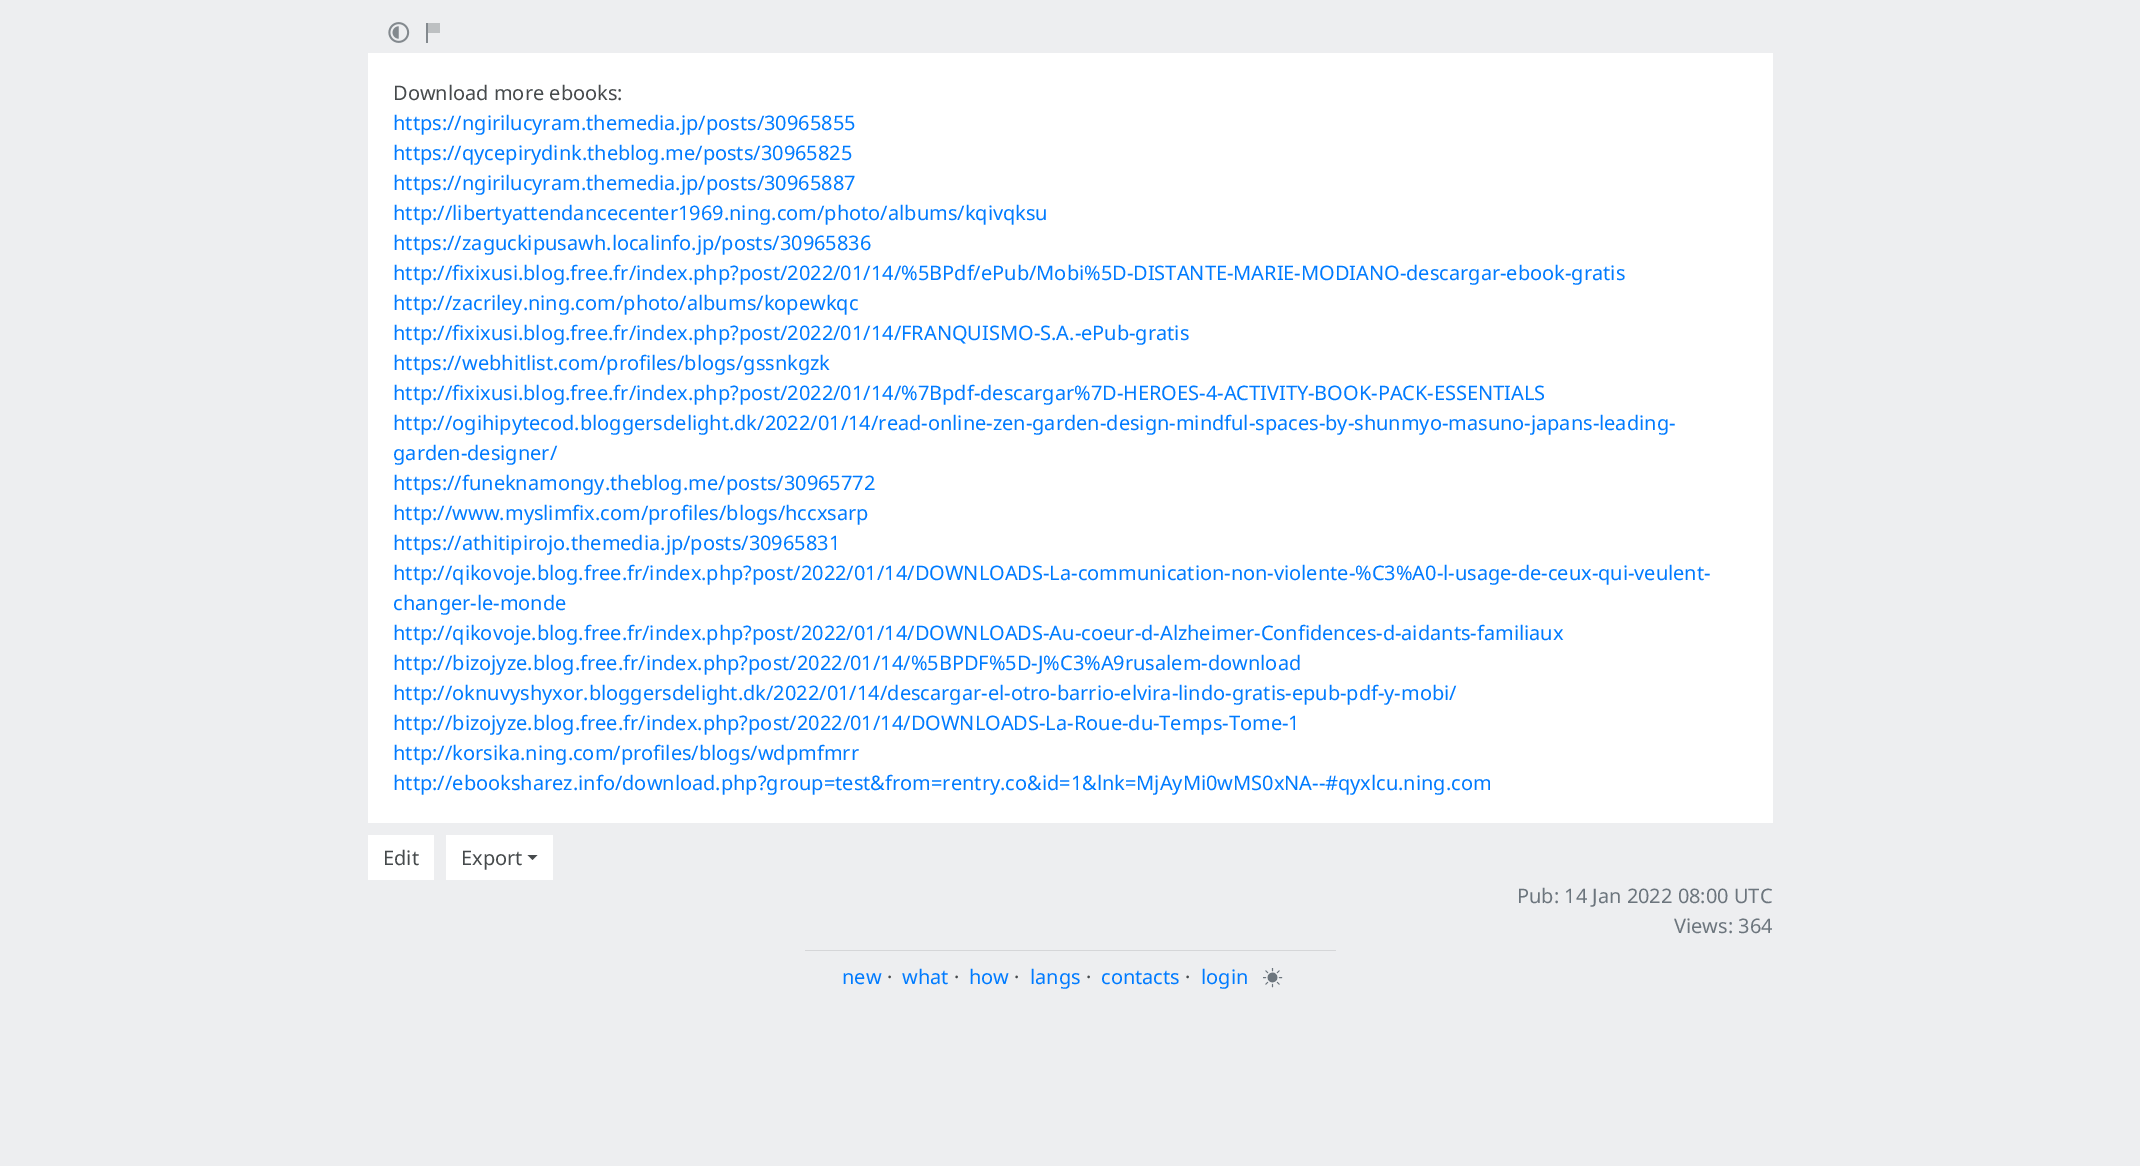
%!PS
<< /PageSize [2140 1166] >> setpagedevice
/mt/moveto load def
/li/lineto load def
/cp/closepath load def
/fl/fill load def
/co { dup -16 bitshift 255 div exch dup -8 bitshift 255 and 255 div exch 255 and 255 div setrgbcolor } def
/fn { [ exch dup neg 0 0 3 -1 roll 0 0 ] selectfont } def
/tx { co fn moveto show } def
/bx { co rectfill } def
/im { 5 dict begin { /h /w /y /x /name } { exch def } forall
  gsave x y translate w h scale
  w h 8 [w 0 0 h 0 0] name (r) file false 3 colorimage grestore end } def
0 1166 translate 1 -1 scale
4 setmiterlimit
0 0 2140 1166 16#EDEEF0 bx
(media/1.raw) 388 22 22 21 im
426 23 2 20 16#83898E bx
428 23 12 10 16#BDC0C2 bx
368 53 1405 770 16#FFFFFF bx
368 835 66 45 16#FFFFFF bx
446 835 107 45 16#FFFFFF bx
16#464A4C co
527.5 855 mt 537.5 855 li 532.5 860 li cp fl
805 950 531 1 16#D5D6D8 bx
(media/2.raw) 1263 968 20 20 im
(Download more ebooks:) 393 100 /NotoSans-Regular 20 16#464A4C tx
(https://ngirilucyram.themedia.jp/posts/30965855) 393 130 /NotoSans-Regular 20 16#007BFF tx
(https://qycepirydink.theblog.me/posts/30965825) 393 160 /NotoSans-Regular 20 16#007BFF tx
(https://ngirilucyram.themedia.jp/posts/30965887) 393 190 /NotoSans-Regular 20 16#007BFF tx
(http://libertyattendancecenter1969.ning.com/photo/albums/kqivqksu) 393 220 /NotoSans-Regular 20 16#007BFF tx
(https://zaguckipusawh.localinfo.jp/posts/30965836) 393 250 /NotoSans-Regular 20 16#007BFF tx
(http://fixixusi.blog.free.fr/index.php?post/2022/01/14/%5BPdf/ePub/Mobi%5D-DISTANTE-MARIE-MODIANO-descargar-ebook-gratis) 393 280 /NotoSans-Regular 20 16#007BFF tx
(http://zacriley.ning.com/photo/albums/kopewkqc) 393 310 /NotoSans-Regular 20 16#007BFF tx
(http://fixixusi.blog.free.fr/index.php?post/2022/01/14/FRANQUISMO-S.A.-ePub-gratis) 393 340 /NotoSans-Regular 20 16#007BFF tx
(https://webhitlist.com/profiles/blogs/gssnkgzk) 393 370 /NotoSans-Regular 20 16#007BFF tx
(http://fixixusi.blog.free.fr/index.php?post/2022/01/14/%7Bpdf-descargar%7D-HEROES-4-ACTIVITY-BOOK-PACK-ESSENTIALS) 393 400 /NotoSans-Regular 20 16#007BFF tx
(http://ogihipytecod.bloggersdelight.dk/2022/01/14/read-online-zen-garden-design-mindful-spaces-by-shunmyo-masuno-japans-leading-) 393 430 /NotoSans-Regular 20 16#007BFF tx
(garden-designer/) 393 460 /NotoSans-Regular 20 16#007BFF tx
(https://funeknamongy.theblog.me/posts/30965772) 393 490 /NotoSans-Regular 20 16#007BFF tx
(http://www.myslimfix.com/profiles/blogs/hccxsarp) 393 520 /NotoSans-Regular 20 16#007BFF tx
(https://athitipirojo.themedia.jp/posts/30965831) 393 550 /NotoSans-Regular 20 16#007BFF tx
(http://qikovoje.blog.free.fr/index.php?post/2022/01/14/DOWNLOADS-La-communication-non-violente-%C3%A0-l-usage-de-ceux-qui-veulent-) 393 580 /NotoSans-Regular 20 16#007BFF tx
(changer-le-monde) 393 610 /NotoSans-Regular 20 16#007BFF tx
(http://qikovoje.blog.free.fr/index.php?post/2022/01/14/DOWNLOADS-Au-coeur-d-Alzheimer-Confidences-d-aidants-familiaux) 393 640 /NotoSans-Regular 20 16#007BFF tx
(http://bizojyze.blog.free.fr/index.php?post/2022/01/14/%5BPDF%5D-J%C3%A9rusalem-download) 393 670 /NotoSans-Regular 20 16#007BFF tx
(http://oknuvyshyxor.bloggersdelight.dk/2022/01/14/descargar-el-otro-barrio-elvira-lindo-gratis-epub-pdf-y-mobi/) 393 700 /NotoSans-Regular 20 16#007BFF tx
(http://bizojyze.blog.free.fr/index.php?post/2022/01/14/DOWNLOADS-La-Roue-du-Temps-Tome-1) 393 730 /NotoSans-Regular 20 16#007BFF tx
(http://korsika.ning.com/profiles/blogs/wdpmfmrr) 393 760 /NotoSans-Regular 20 16#007BFF tx
(http://ebooksharez.info/download.php?group=test&from=rentry.co&id=1&lnk=MjAyMi0wMS0xNA--#qyxlcu.ning.com) 393 790 /NotoSans-Regular 20 16#007BFF tx
(Edit) 383 865 /NotoSans-Regular 20 16#464A4C tx
(Export) 461 865 /NotoSans-Regular 20 16#464A4C tx
(Pub: 14 Jan 2022 08:00 UTC) 1517 903 /NotoSans-Regular 20 16#6C757D tx
(Views: 364) 1674 933 /NotoSans-Regular 20 16#6C757D tx
(new) 842 984 /NotoSans-Regular 20 16#007BFF tx
(·) 887 984 /NotoSans-Regular 20 16#464A4C tx
(what) 902 984 /NotoSans-Regular 20 16#007BFF tx
(·) 954 984 /NotoSans-Regular 20 16#464A4C tx
(how) 969 984 /NotoSans-Regular 20 16#007BFF tx
(·) 1014 984 /NotoSans-Regular 20 16#464A4C tx
(langs) 1030 984 /NotoSans-Regular 20 16#007BFF tx
(·) 1086 984 /NotoSans-Regular 20 16#464A4C tx
(contacts) 1101 984 /NotoSans-Regular 20 16#007BFF tx
(·) 1185 984 /NotoSans-Regular 20 16#464A4C tx
(login) 1201 984 /NotoSans-Regular 20 16#007BFF tx
showpage
